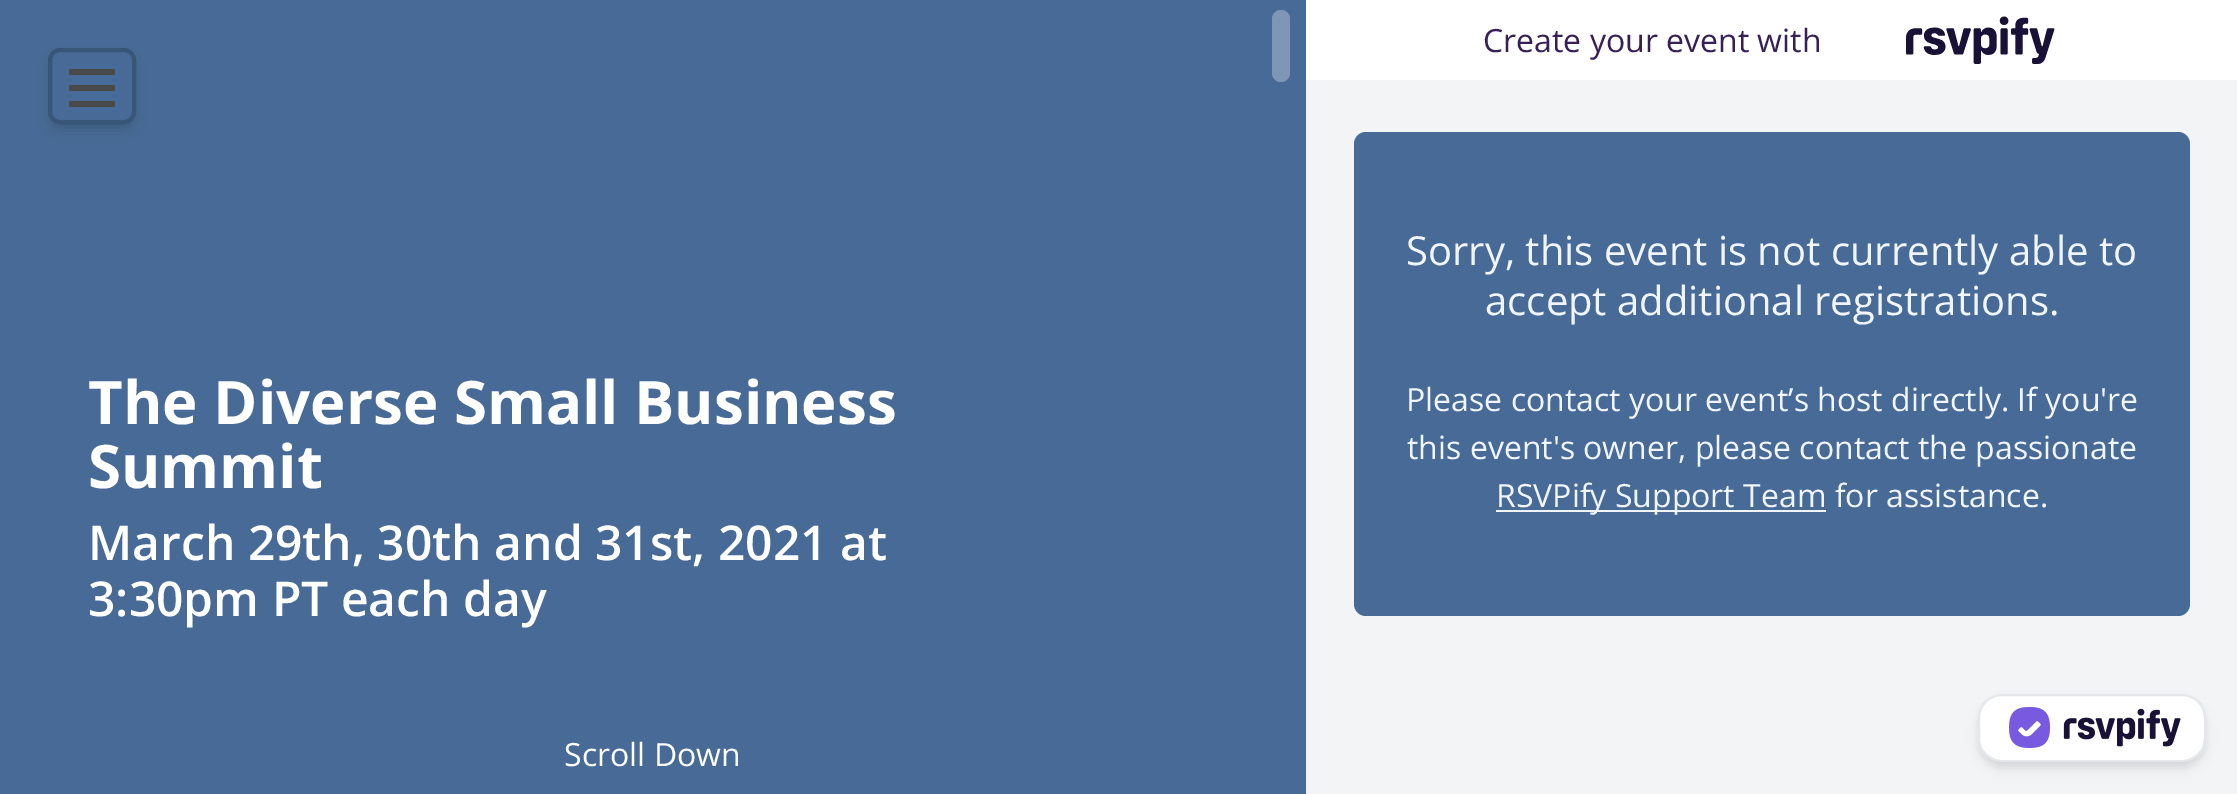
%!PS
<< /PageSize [2237 794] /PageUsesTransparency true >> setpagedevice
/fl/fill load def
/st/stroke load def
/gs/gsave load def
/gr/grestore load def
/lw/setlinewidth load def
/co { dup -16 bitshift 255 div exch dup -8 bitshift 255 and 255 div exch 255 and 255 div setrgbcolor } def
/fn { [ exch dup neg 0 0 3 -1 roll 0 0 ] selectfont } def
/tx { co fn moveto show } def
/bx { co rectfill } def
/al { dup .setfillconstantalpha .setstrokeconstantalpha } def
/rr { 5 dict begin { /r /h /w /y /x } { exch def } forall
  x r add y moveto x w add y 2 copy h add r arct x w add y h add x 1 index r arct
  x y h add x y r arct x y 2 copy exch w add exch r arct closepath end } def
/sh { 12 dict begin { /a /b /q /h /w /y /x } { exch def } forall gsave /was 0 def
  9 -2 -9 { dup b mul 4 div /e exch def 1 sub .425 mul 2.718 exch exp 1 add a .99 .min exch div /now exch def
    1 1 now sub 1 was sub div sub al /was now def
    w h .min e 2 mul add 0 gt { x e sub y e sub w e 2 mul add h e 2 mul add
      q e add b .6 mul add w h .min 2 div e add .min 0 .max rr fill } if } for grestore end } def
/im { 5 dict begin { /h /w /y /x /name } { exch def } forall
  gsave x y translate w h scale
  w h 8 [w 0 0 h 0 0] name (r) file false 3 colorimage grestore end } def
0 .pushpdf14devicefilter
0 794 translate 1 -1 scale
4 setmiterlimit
0 0 2237 794 16#F3F4F6 bx
1306 0 931 80 16#FFFFFF bx
(media/1.raw) 1906 16 149 48 im
16#476A96 co
1354 132 836 484 12 rr fl
1496 510 330 2 16#F1F5FF bx
16#000000 co
1982 702 220 60 20 4 .1 sh
1980 704 224 64 22 6 .1 sh
16#FFFFFF co
1979 695 226 66 23 rr gs fl gr
16#E5E7EB co
2 lw
st
(media/2.raw) 2009 706 172 42 im
0 0 1306 794 16#476A96 bx
16#7E97B6 co
1272 10 18 72 9 rr fl
16#000000 co
52 56 80 68 8 4 .1 sh
50 58 84 72 10 6 .1 sh
16#476A96 co
48 48 88 76 12 rr fl
0.2 al
16#000000 co
4 lw
50 50 84 72 10 rr st
1 al
16#4A4A4A co
69 69 46 6 2 rr fl
69 85 46 6 2 rr fl
69 101 46 6 2 rr fl
(Create your event with) 1483 52 /OpenSans-Regular 32 16#372056 tx
(Sorry, this event is not currently able to) 1406 265 /OpenSans-Regular 40 16#F1F5FF tx
(accept additional registrations.) 1485 315 /OpenSans-Regular 40 16#F1F5FF tx
(Please contact your event’s host directly. If you're) 1406 411 /OpenSans-Regular 32 16#F1F5FF tx
(this event's owner, please contact the passionate) 1407 459 /OpenSans-Regular 32 16#F1F5FF tx
(RSVPify Support Team for assistance.) 1496 507 /OpenSans-Regular 32 16#F1F5FF tx
(The Diverse Small Business) 88 424 /OpenSans-Bold 60 16#FFFFFF tx
(Summit) 88 488 /OpenSans-Bold 60 16#FFFFFF tx
(March 29th, 30th and 31st, 2021 at) 88 560 /OpenSans-SemiBold 48 16#FFFFFF tx
(3:30pm PT each day) 88 616 /OpenSans-SemiBold 48 16#FFFFFF tx
(Scroll Down) 564 766 /OpenSans-Regular 32 16#FFFFFF tx
.poppdf14devicefilter showpage
